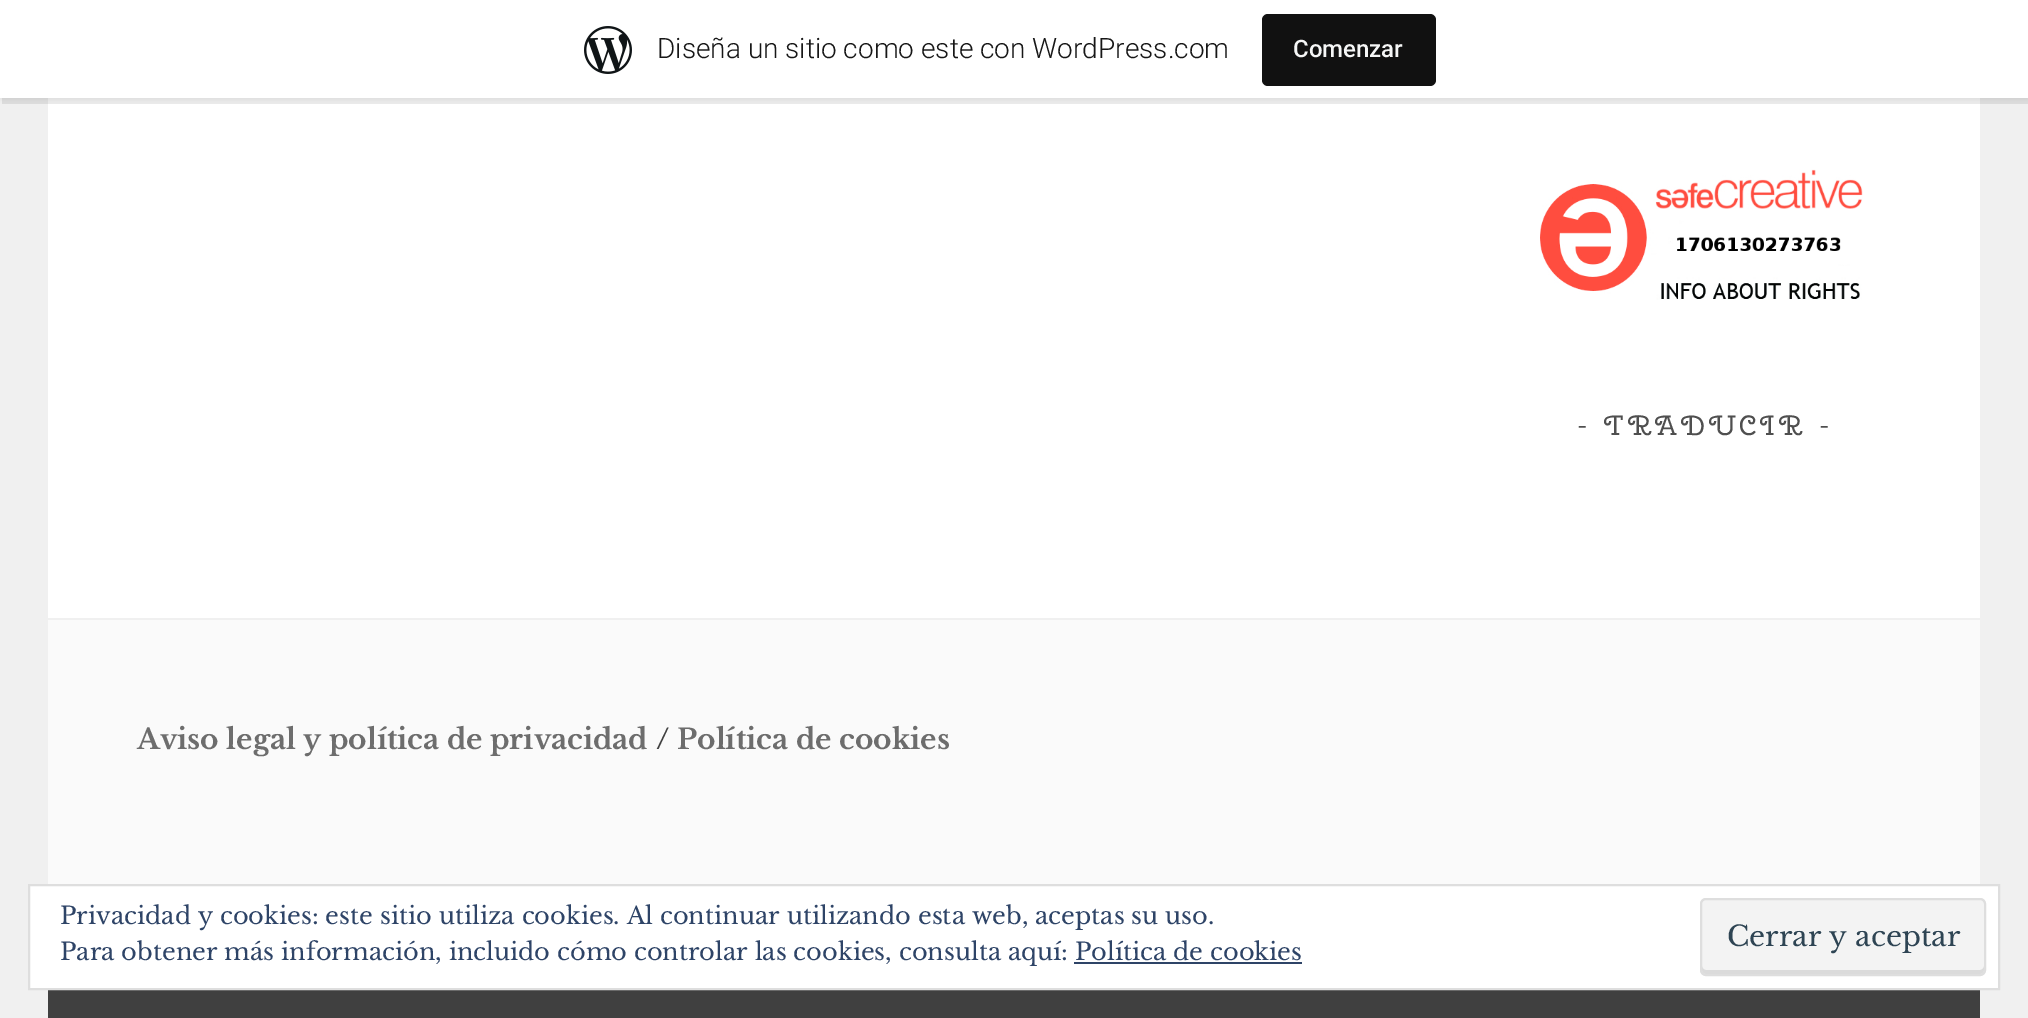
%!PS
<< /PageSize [2028 1018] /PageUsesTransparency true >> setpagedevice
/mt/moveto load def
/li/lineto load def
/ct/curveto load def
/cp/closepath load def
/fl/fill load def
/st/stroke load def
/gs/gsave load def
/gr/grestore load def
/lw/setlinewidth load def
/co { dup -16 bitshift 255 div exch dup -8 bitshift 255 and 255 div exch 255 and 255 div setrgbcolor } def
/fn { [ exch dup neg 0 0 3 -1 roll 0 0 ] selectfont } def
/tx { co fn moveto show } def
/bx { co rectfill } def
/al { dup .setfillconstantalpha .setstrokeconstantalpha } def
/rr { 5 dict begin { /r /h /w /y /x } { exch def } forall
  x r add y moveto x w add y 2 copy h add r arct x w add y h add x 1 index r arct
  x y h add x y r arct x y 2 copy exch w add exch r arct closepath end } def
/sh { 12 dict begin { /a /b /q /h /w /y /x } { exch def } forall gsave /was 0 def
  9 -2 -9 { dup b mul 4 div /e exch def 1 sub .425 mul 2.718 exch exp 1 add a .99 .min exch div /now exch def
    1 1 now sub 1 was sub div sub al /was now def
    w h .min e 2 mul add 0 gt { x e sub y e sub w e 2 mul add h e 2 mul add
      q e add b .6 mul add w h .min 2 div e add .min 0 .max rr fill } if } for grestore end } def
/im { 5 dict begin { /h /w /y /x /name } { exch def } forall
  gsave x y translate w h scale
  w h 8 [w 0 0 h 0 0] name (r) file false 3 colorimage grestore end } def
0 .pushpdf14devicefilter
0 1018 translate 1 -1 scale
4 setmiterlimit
0 0 2028 1018 16#F0F0F0 bx
48 98 1932 520 16#FFFFFF bx
16#000000 co
0 2 2028 98 0 2 .05 sh
0.08 al
2 98 mt 2 104 li 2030 104 li 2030 6 li 2028 6 li 2028 98 li cp fl
1 al
0 0 2028 98 16#FFFFFF bx
(media/1.raw) 584 26 48 48 im
16#111111 co
1262 14 174 72 6 rr fl
(media/2.raw) 1540 169 323 131 im
48 620 1932 264 16#FAFAFA bx
48 990 1932 28 16#404040 bx
16#FFFFFF co
29 885 mt 1999 885 li 1999 989 li 29 989 li cp gs fl gr
16#DEDEDE co
2 lw
st
16#F3F3F3 co
1700 898 286 78 6 rr fl
16#DBDBDB co
1702 966 mt 1702 970 li 1702 972 1704 974 1706 974 ct 1980 974 li 1982 974 1984 972 1984 970 ct 1984 966 li 1984 968 1982 970 1980 970 ct 1706 970 li 1704 970 1702 968 1702 966 ct cp fl
16#DEDEDE co
1701 899 284 76 5 rr st
1074 962 228 2 16#2E4467 bx
(Diseña un sitio como este con WordPress.com) 657 58 /Roboto-Light 28 16#171717 tx
(Comenzar) 1293 57 /Roboto-Medium 24 16#F6F7F7 tx
/CherrySwash-Regular 28 fn
16#4F4F4F co
1577 435 mt 4 0 (- TRADUCIR -) ashow
(Aviso legal y política de privacidad) 137 749 /LibreBaskerville-Bold 28 16#6D6D6D tx
(/) 656 749 /LibreBaskerville-Bold 28 16#404040 tx
(Política de cookies) 677 749 /LibreBaskerville-Bold 28 16#6D6D6D tx
(Privacidad y cookies: este sitio utiliza cookies. Al continuar utilizando esta web, aceptas su uso.) 60 924 /LibreBaskerville-Regular 24 16#2E4467 tx
(Para obtener más información, incluido cómo controlar las cookies, consulta aquí: Política de cookies) 60 960 /LibreBaskerville-Regular 24 16#2E4467 tx
(Cerrar y aceptar) 1727 946 /LibreBaskerville-Regular 28 16#2E4453 tx
.poppdf14devicefilter showpage
